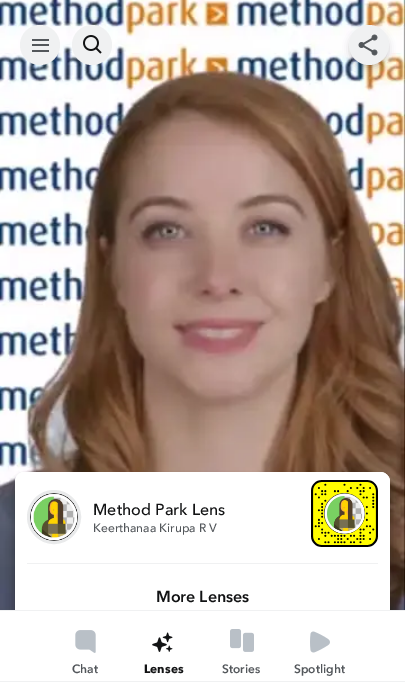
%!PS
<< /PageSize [405 682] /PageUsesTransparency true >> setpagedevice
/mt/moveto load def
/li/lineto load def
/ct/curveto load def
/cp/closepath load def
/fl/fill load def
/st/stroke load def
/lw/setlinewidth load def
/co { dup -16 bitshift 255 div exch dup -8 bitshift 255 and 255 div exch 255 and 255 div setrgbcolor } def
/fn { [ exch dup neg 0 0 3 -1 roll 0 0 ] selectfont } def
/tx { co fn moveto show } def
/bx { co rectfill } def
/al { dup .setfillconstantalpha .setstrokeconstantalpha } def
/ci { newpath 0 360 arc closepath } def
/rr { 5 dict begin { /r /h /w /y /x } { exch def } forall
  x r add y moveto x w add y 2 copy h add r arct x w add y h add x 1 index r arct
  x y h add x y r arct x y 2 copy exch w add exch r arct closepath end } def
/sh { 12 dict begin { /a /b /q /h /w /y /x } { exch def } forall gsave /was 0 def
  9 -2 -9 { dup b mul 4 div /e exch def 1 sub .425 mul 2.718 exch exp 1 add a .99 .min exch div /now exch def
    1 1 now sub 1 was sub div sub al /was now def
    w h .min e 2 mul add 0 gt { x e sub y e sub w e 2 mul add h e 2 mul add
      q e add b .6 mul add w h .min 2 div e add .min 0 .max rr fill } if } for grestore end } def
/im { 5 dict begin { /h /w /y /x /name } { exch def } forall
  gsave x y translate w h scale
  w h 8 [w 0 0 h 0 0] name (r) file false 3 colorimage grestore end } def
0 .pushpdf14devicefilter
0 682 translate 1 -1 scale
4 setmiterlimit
0 0 405 682 16#FFFFFF bx
(media/2.raw) 0 0 405 610 im
16#000000 co
351 31 36 36 18 4 .25 sh
16#F0F1F2 co
369 45 20 ci fl
(media/1.raw) 358 34 20 22 im
16#121314 co
19 484 367 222 6 6 1 sh
16#FFFFFF co
25 472 mt 380 472 li 385.5 472 390 476.5 390 482 ct 390 682 li 15 682 li 15 482 li 15 476.5 19.5 472 25 472 ct cp fl
25 472 mt 380 472 li 385.5 472 390 476.5 390 482 ct 390 564 li 15 564 li 15 482 li 15 476.5 19.5 472 25 472 ct cp fl
27 563 351 1 16#F0F1F2 bx
16#E9EAEB co
3 lw
54 517 25.5 ci st
(media/3.raw) 30 493 48 48 im
(media/4.raw) 311 480 67 67 im
16#F0F1F2 co
40 45 20 ci fl
32 39 17 2 16#53575B bx
32 44 17 2 16#53575B bx
32 50 17 2 16#53575B bx
16#F0F1F2 co
92 45 20 ci fl
(media/5.raw) 83 35 19 19 im
5 611 395 70 16#FFFFFF bx
0 610 405 1 16#F0F1F2 bx
0 681 405 1 16#F0F1F2 bx
(media/6.raw) 75 630 21 23 im
(media/7.raw) 152 632 21 20 im
(media/8.raw) 230 629 24 23 im
(media/9.raw) 310 631 20 22 im
(Method Park Lens) 93 515 /AvenirNext-Medium 16 16#121314 tx
(Keerthanaa Kirupa R V) 93 532 /AvenirNext-Medium 12 16#53575B tx
(More Lenses) 156 602 /AvenirNext-SemiBold 16 16#121314 tx
(Chat) 72 673 /AvenirNext-SemiBold 12 16#53575B tx
(Lenses) 144 673 /AvenirNext-Bold 12 16#121314 tx
(Stories) 222 673 /AvenirNext-SemiBold 12 16#53575B tx
(Spotlight) 294 673 /AvenirNext-SemiBold 12 16#53575B tx
.poppdf14devicefilter showpage
